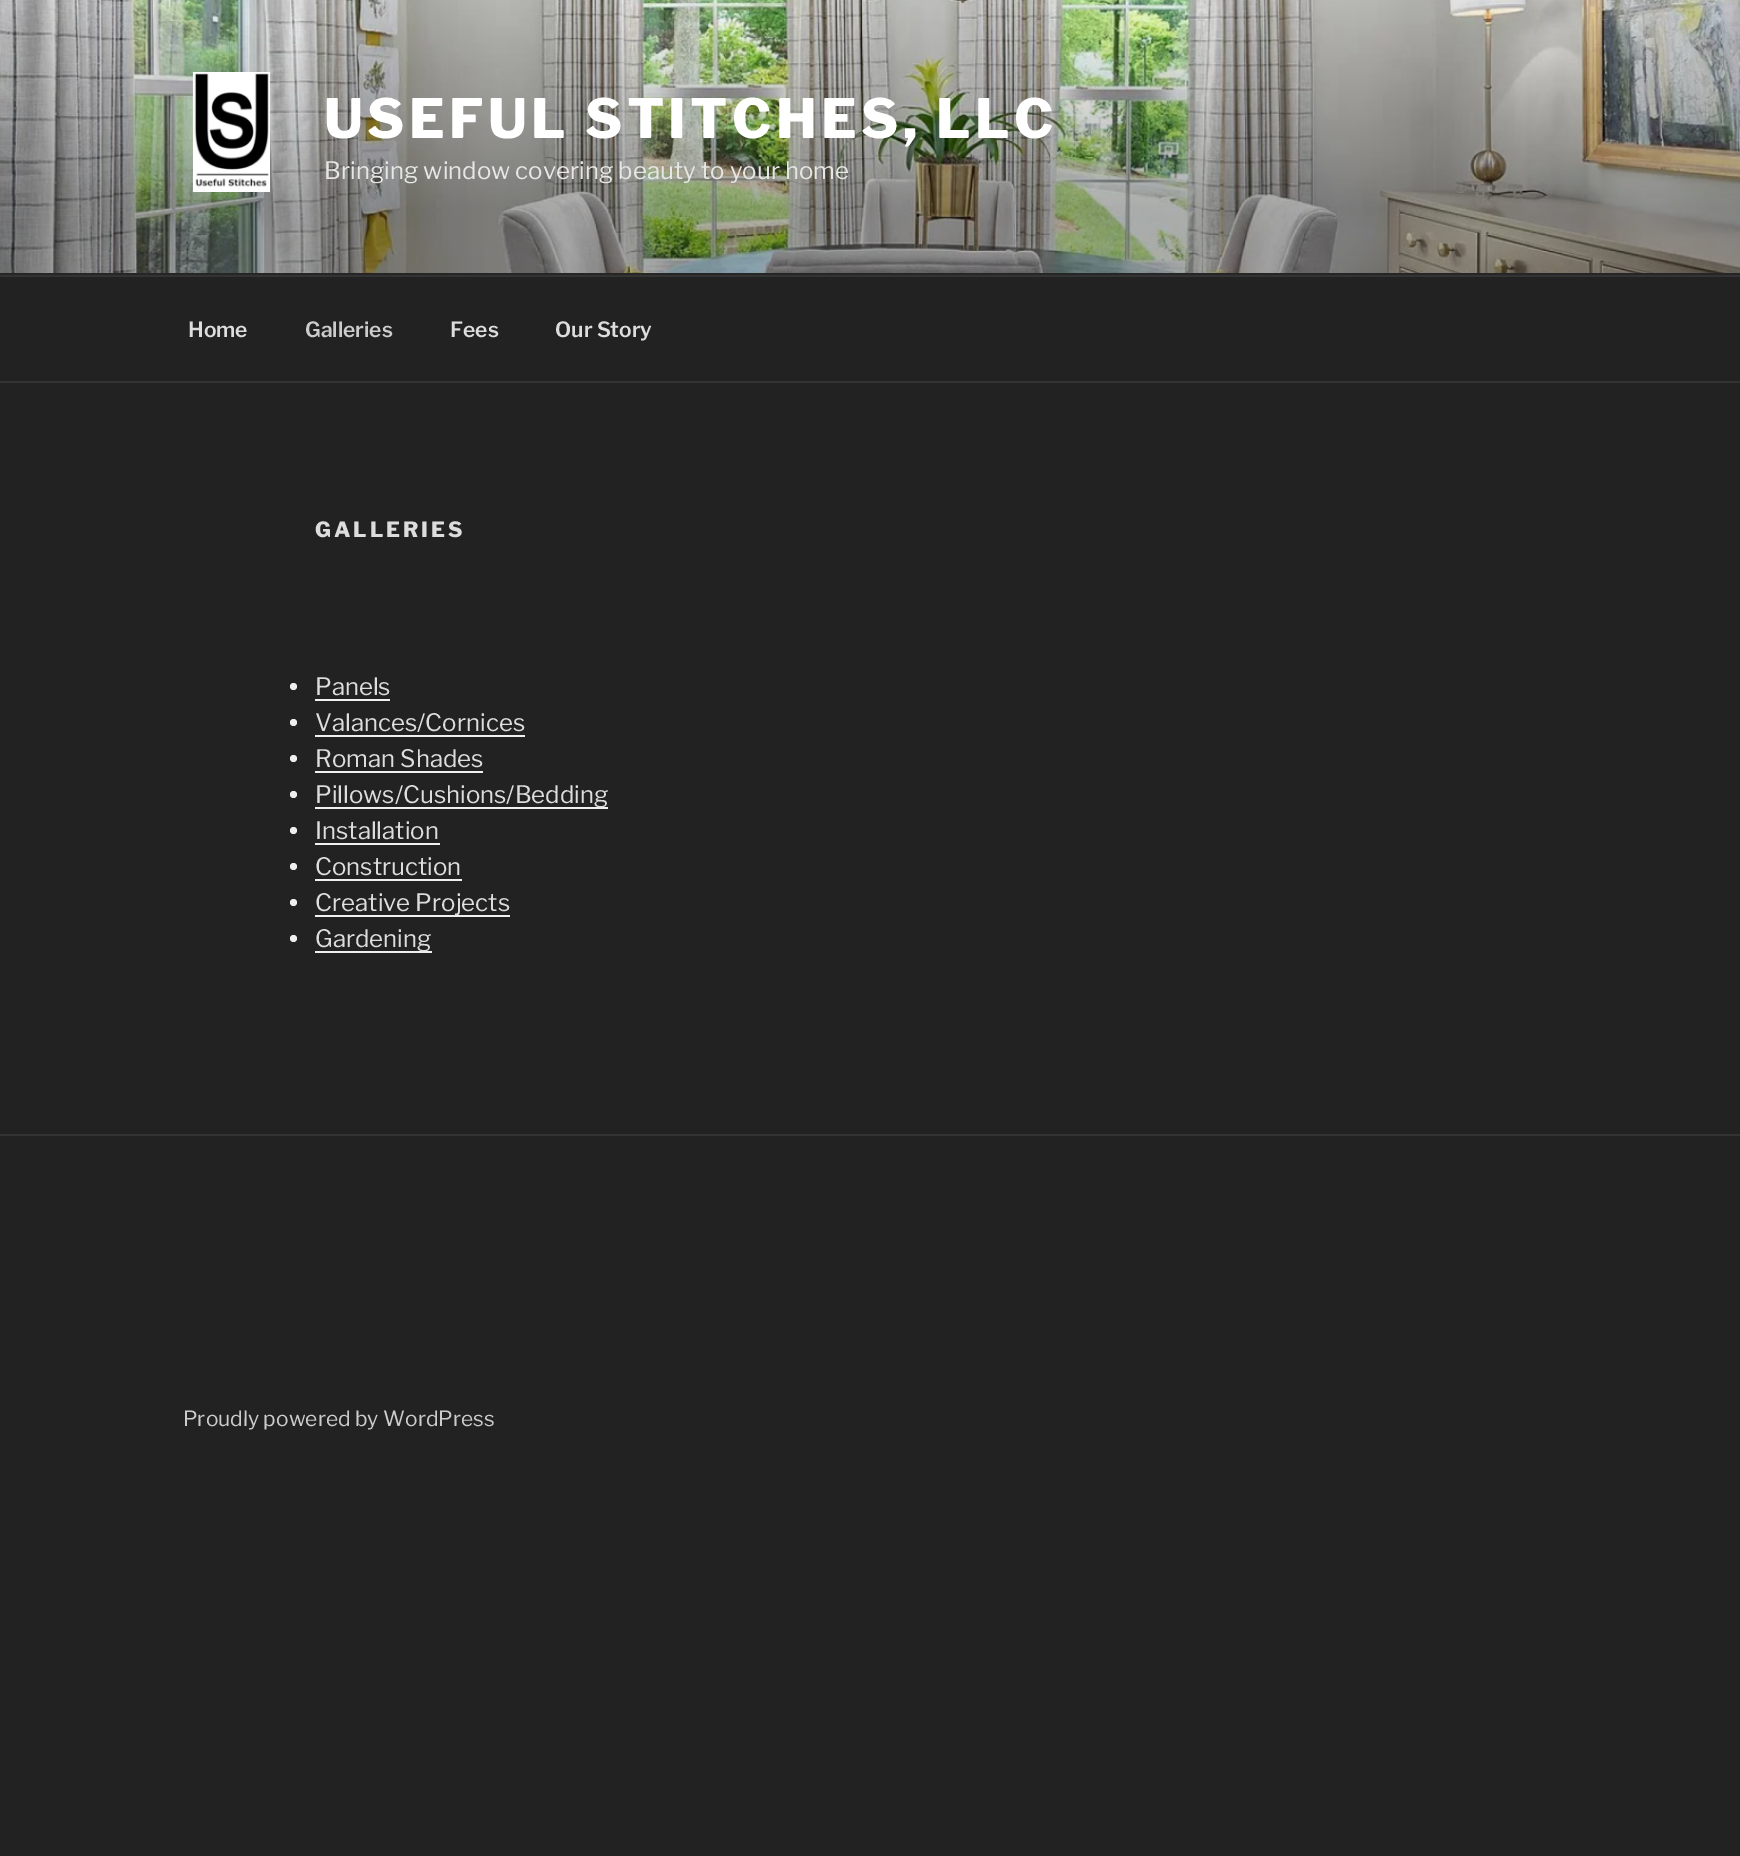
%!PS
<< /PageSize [1740 1856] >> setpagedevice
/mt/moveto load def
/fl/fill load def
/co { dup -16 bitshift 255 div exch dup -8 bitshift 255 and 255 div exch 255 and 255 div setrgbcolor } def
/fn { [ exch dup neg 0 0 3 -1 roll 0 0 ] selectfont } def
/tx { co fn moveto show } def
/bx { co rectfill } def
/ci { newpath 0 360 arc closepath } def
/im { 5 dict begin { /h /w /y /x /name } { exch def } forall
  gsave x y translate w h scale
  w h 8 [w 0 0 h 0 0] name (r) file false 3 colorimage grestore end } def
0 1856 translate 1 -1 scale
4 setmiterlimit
0 0 1740 1856 16#222222 bx
0 273 1740 2 16#262626 bx
(media/1.raw) 0 0 1740 273 im
(media/2.raw) 192 72 78 120 im
0 275 1740 2 16#333333 bx
0 381 1740 2 16#333333 bx
16#EEEEEE co
293.5 686.5 3.5 ci fl
315 699 75 2 16#F0F0F0 bx
16#EEEEEE co
293.5 722.5 3.5 ci fl
315 735 210 2 16#F0F0F0 bx
16#EEEEEE co
293.5 758.5 3.5 ci fl
315 771 168 2 16#F0F0F0 bx
16#EEEEEE co
293.5 794.5 3.5 ci fl
315 807 293 2 16#F0F0F0 bx
16#EEEEEE co
293.5 830.5 3.5 ci fl
315 843 125 2 16#F0F0F0 bx
16#EEEEEE co
293.5 866.5 3.5 ci fl
315 879 147 2 16#F0F0F0 bx
16#EEEEEE co
293.5 902.5 3.5 ci fl
315 915 195 2 16#F0F0F0 bx
16#EEEEEE co
293.5 938.5 3.5 ci fl
315 951 117 2 16#F0F0F0 bx
0 1134 1740 2 16#333333 bx
/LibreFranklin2-Thin 54 fn
16#FFFFFF co
324 138 mt 4.3 0 (USEFUL STITCHES, LLC) ashow
(Bringing window covering beauty to your home) 324 179 /LibreFranklin-Thin 24 16#E6E6E4 tx
(Home) 188 337 /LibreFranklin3-Thin 21 16#DDDDDD tx
(Galleries) 305 337 /LibreFranklin3-Thin 21 16#CCCCCC tx
(Fees) 450 337 /LibreFranklin3-Thin 21 16#DDDDDD tx
(Our Story) 555 337 /LibreFranklin3-Thin 21 16#DDDDDD tx
/LibreFranklin2-Thin 21 fn
315 537 mt 3 0 (GALLERIES) ashow
(Panels) 315 695 /LibreFranklin-Thin 24 16#DDDDDD tx
(Valances/Cornices) 315 731 /LibreFranklin-Thin 24 16#DDDDDD tx
(Roman Shades) 315 767 /LibreFranklin-Thin 24 16#DDDDDD tx
(Pillows/Cushions/Bedding) 315 803 /LibreFranklin-Thin 24 16#DDDDDD tx
(Installation) 315 839 /LibreFranklin-Thin 24 16#DDDDDD tx
(Construction) 315 875 /LibreFranklin-Thin 24 16#DDDDDD tx
(Creative Projects) 315 911 /LibreFranklin-Thin 24 16#DDDDDD tx
(Gardening) 315 947 /LibreFranklin-Thin 24 16#DDDDDD tx
(Proudly powered by WordPress) 183 1426 /LibreFranklin-Thin 21 16#CCCCCC tx
showpage
